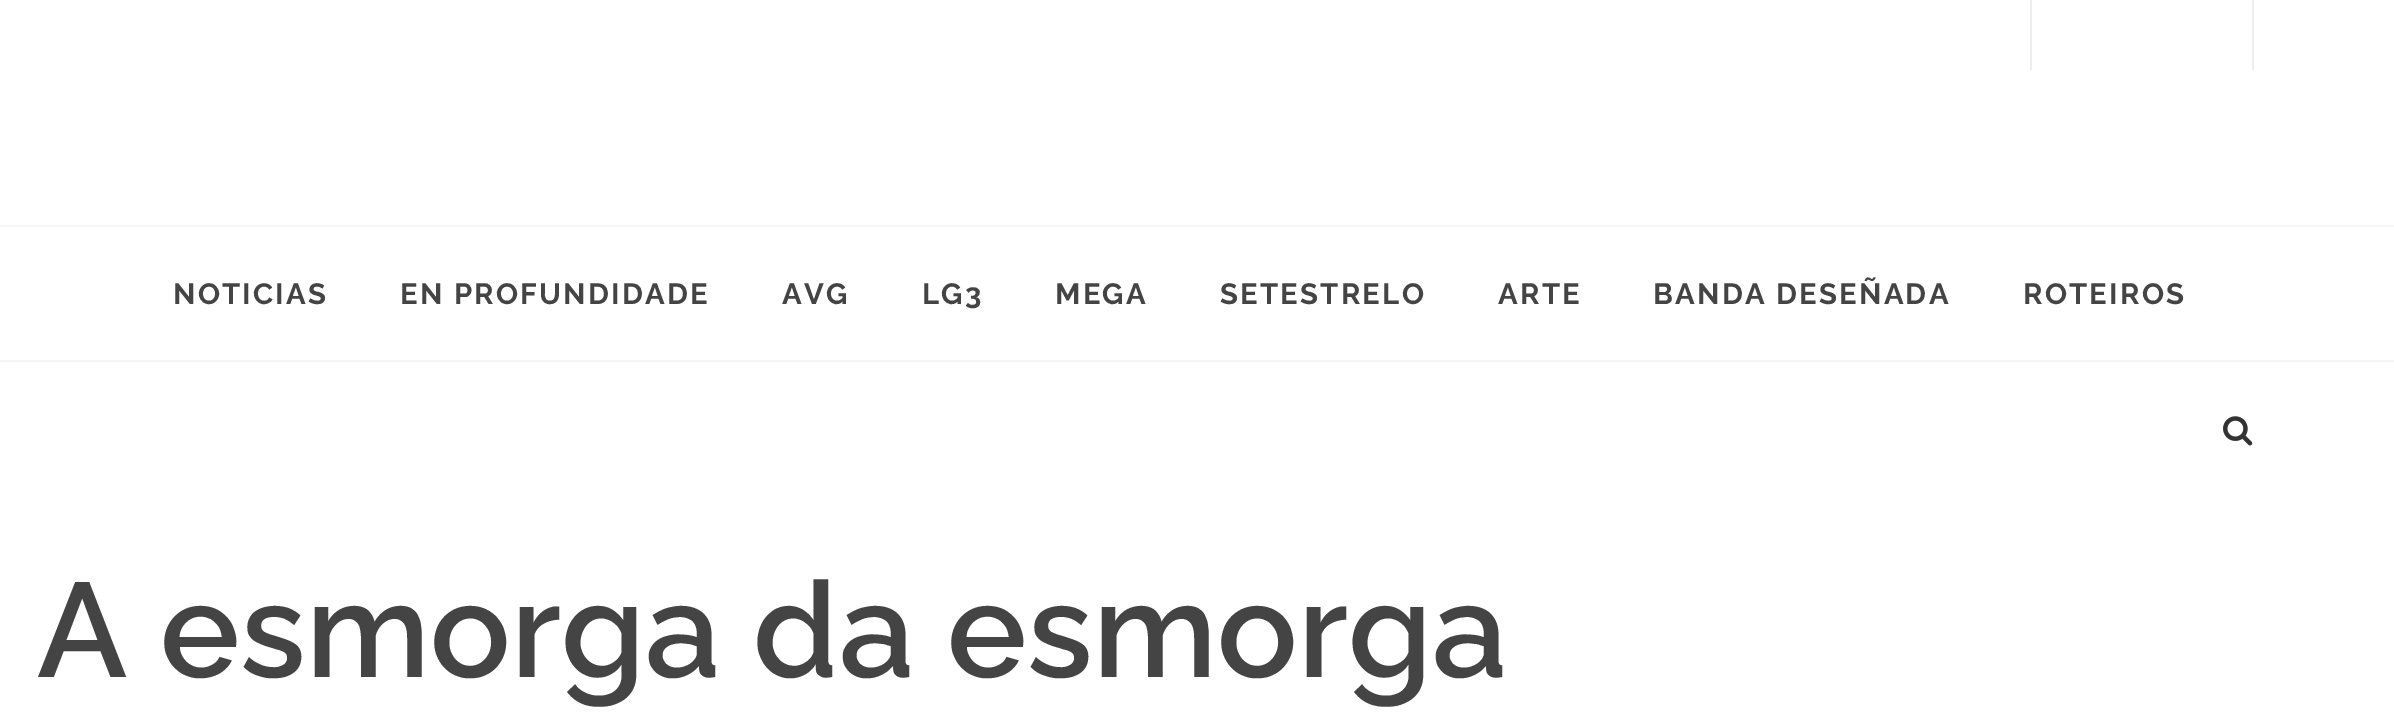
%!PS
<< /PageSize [2394 725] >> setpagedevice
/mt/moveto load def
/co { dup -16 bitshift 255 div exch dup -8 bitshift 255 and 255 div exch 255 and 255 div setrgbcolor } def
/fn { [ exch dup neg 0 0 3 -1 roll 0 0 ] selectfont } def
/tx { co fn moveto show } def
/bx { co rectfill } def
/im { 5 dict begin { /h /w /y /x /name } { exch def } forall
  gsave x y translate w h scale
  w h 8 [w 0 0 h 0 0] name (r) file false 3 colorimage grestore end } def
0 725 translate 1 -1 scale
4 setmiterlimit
0 0 2394 725 16#FFFFFF bx
0 360 2394 2 16#F5F5F5 bx
2252 0 2 70 16#EEEEEE bx
2030 0 2 70 16#EEEEEE bx
0 225 2394 2 16#F5F5F5 bx
(media/1.raw) 2223 416 30 30 im
/Raleway-Bold 29.25 fn
16#444444 co
173 304 mt 2.25 0 (NOTICIAS) ashow
400 304 mt 2.25 0 (EN PROFUNDIDADE) ashow
782 304 mt 2.25 0 (AVG) ashow
922 304 mt 2.25 0 (LG3) ashow
1055 304 mt 2.25 0 (MEGA) ashow
1220 304 mt 2.25 0 (SETESTRELO) ashow
1498 304 mt 2.25 0 (ARTE) ashow
1653 304 mt 2.25 0 (BANDA DESEÑADA) ashow
2023 304 mt 2.25 0 (ROTEIROS) ashow
(A esmorga da esmorga) 37 677 /Raleway-SemiBold 133.9 16#444444 tx
showpage
